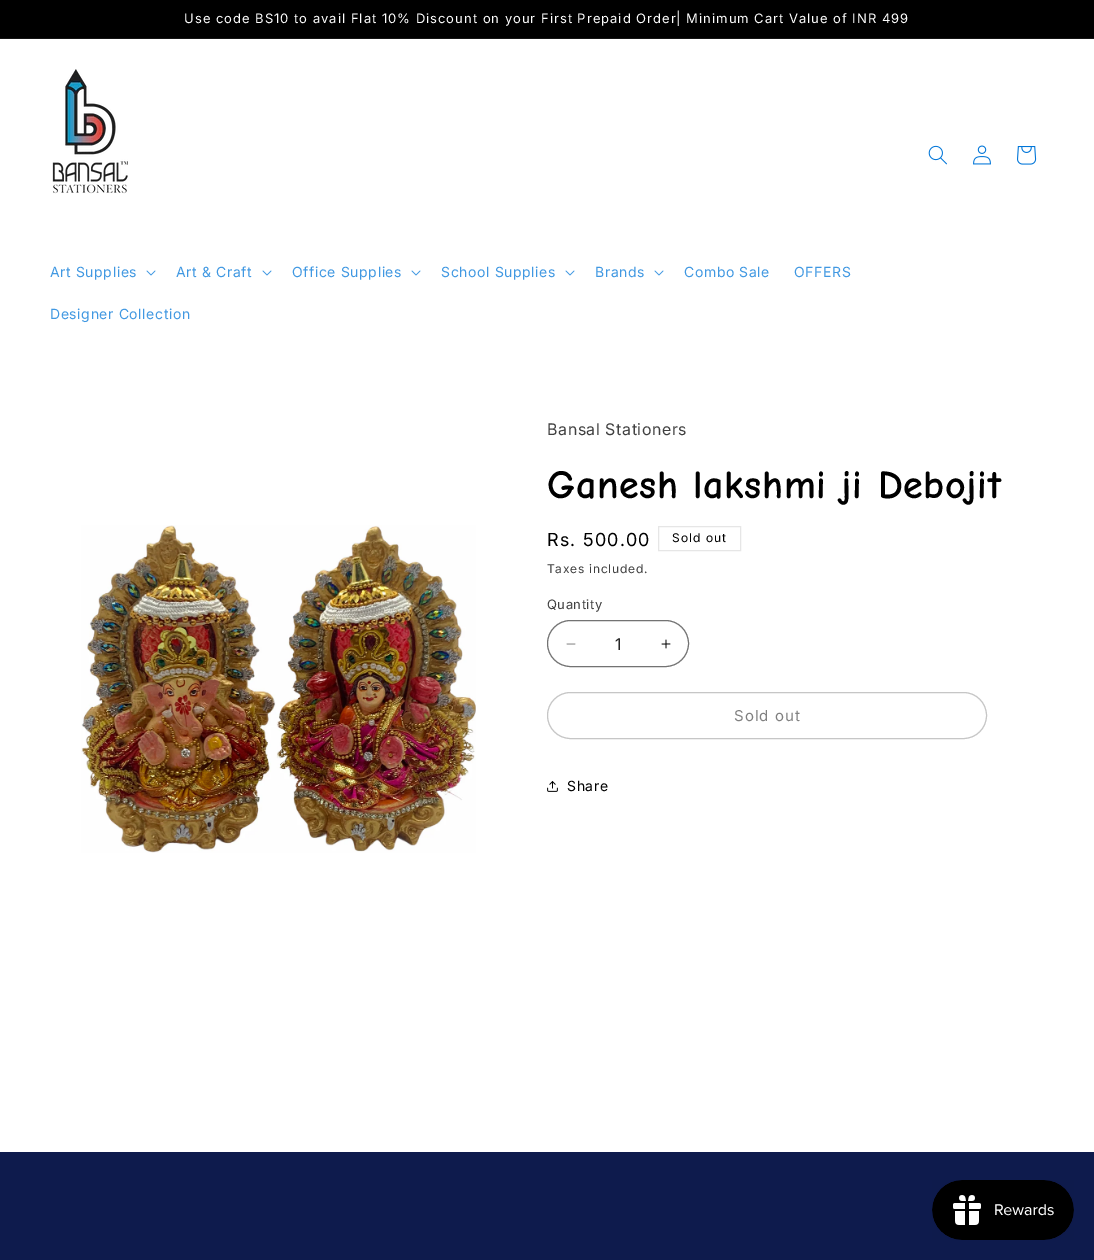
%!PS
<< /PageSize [1094 1260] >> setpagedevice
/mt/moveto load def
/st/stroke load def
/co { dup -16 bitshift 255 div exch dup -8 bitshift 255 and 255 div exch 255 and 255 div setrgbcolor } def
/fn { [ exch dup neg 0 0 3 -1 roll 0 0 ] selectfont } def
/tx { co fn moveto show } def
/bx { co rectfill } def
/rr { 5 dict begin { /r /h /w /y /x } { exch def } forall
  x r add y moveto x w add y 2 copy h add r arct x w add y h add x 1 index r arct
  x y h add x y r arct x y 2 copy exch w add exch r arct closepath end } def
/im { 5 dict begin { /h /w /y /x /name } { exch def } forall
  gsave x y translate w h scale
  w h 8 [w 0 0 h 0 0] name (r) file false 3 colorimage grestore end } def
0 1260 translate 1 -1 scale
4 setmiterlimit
0 0 1094 1260 16#FFFFFF bx
0 0 1094 38 16#000000 bx
0 38 1094 1 16#141414 bx
(media/1.raw) 52 69 76 125 im
(media/2.raw) 928 145 19 20 im
(media/3.raw) 973 145 18 20 im
(media/4.raw) 1017 146 20 19 im
(media/5.raw) 146 270 10 6 im
(media/5.raw) 262 270 10 6 im
(media/5.raw) 411 270 10 6 im
(media/5.raw) 565 270 10 6 im
(media/5.raw) 654 270 10 6 im
(media/6.raw) 81 525 395 328 im
16#E6E6E6 co
658.5 526.5 82 24 rectstroke
(media/7.raw) 566 643 10 2 im
(media/8.raw) 661 639 10 10 im
16#737373 co
547.5 620.5 141 46 23 rr st
16#C6C6C6 co
547.5 692.5 439 46 23 rr st
(media/9.raw) 547 781 11 11 im
0 1152 1094 108 16#0E1B4D bx
(media/10.raw) 932 1180 142 60 im
/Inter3-Regular 13 fn
16#FFFFFF co
184 23 mt 1 0 (Use code BS10 to avail Flat 10% Discount on your First Prepaid Order| Minimum Cart Value of INR 499) ashow
/Inter3-Regular 14 fn
16#4098E2 co
50 277 mt .6 0 (Art Supplies) ashow
176 277 mt .6 0 (Art & Craft) ashow
292 277 mt .6 0 (Office Supplies) ashow
441 277 mt .6 0 (School Supplies) ashow
595 277 mt .6 0 (Brands) ashow
684 277 mt .6 0 (Combo Sale) ashow
794 277 mt .6 0 (OFFERS) ashow
50 319 mt .6 0 (Designer Collection) ashow
/Inter-Regular 16 fn
16#404040 co
547 435 mt .6 0 (Bansal Stationers) ashow
/ComicNeue-Bold 40 fn
16#000000 co
547 498 mt .6 0 (Ganesh lakshmi ji Debojit) ashow
/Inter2-Regular 18 fn
547 546 mt 1.25 0 (Rs. 500.00) ashow
/Inter3-Regular 12 fn
672 542 mt 1 0 (Sold out) ashow
16#404040 co
547 573 mt .75 0 (Taxes included.) ashow
/Inter3-Regular 13 fn
547 609 mt .5 0 (Quantity) ashow
(1) 615 650 /Inter-Regular 16 16#262626 tx
/Inter3-Regular 15 fn
16#808080 co
734 721 mt 1 0 (Sold out) ashow
/Inter3-Regular 14 fn
16#000000 co
567 791 mt .6 0 (Share) ashow
showpage
